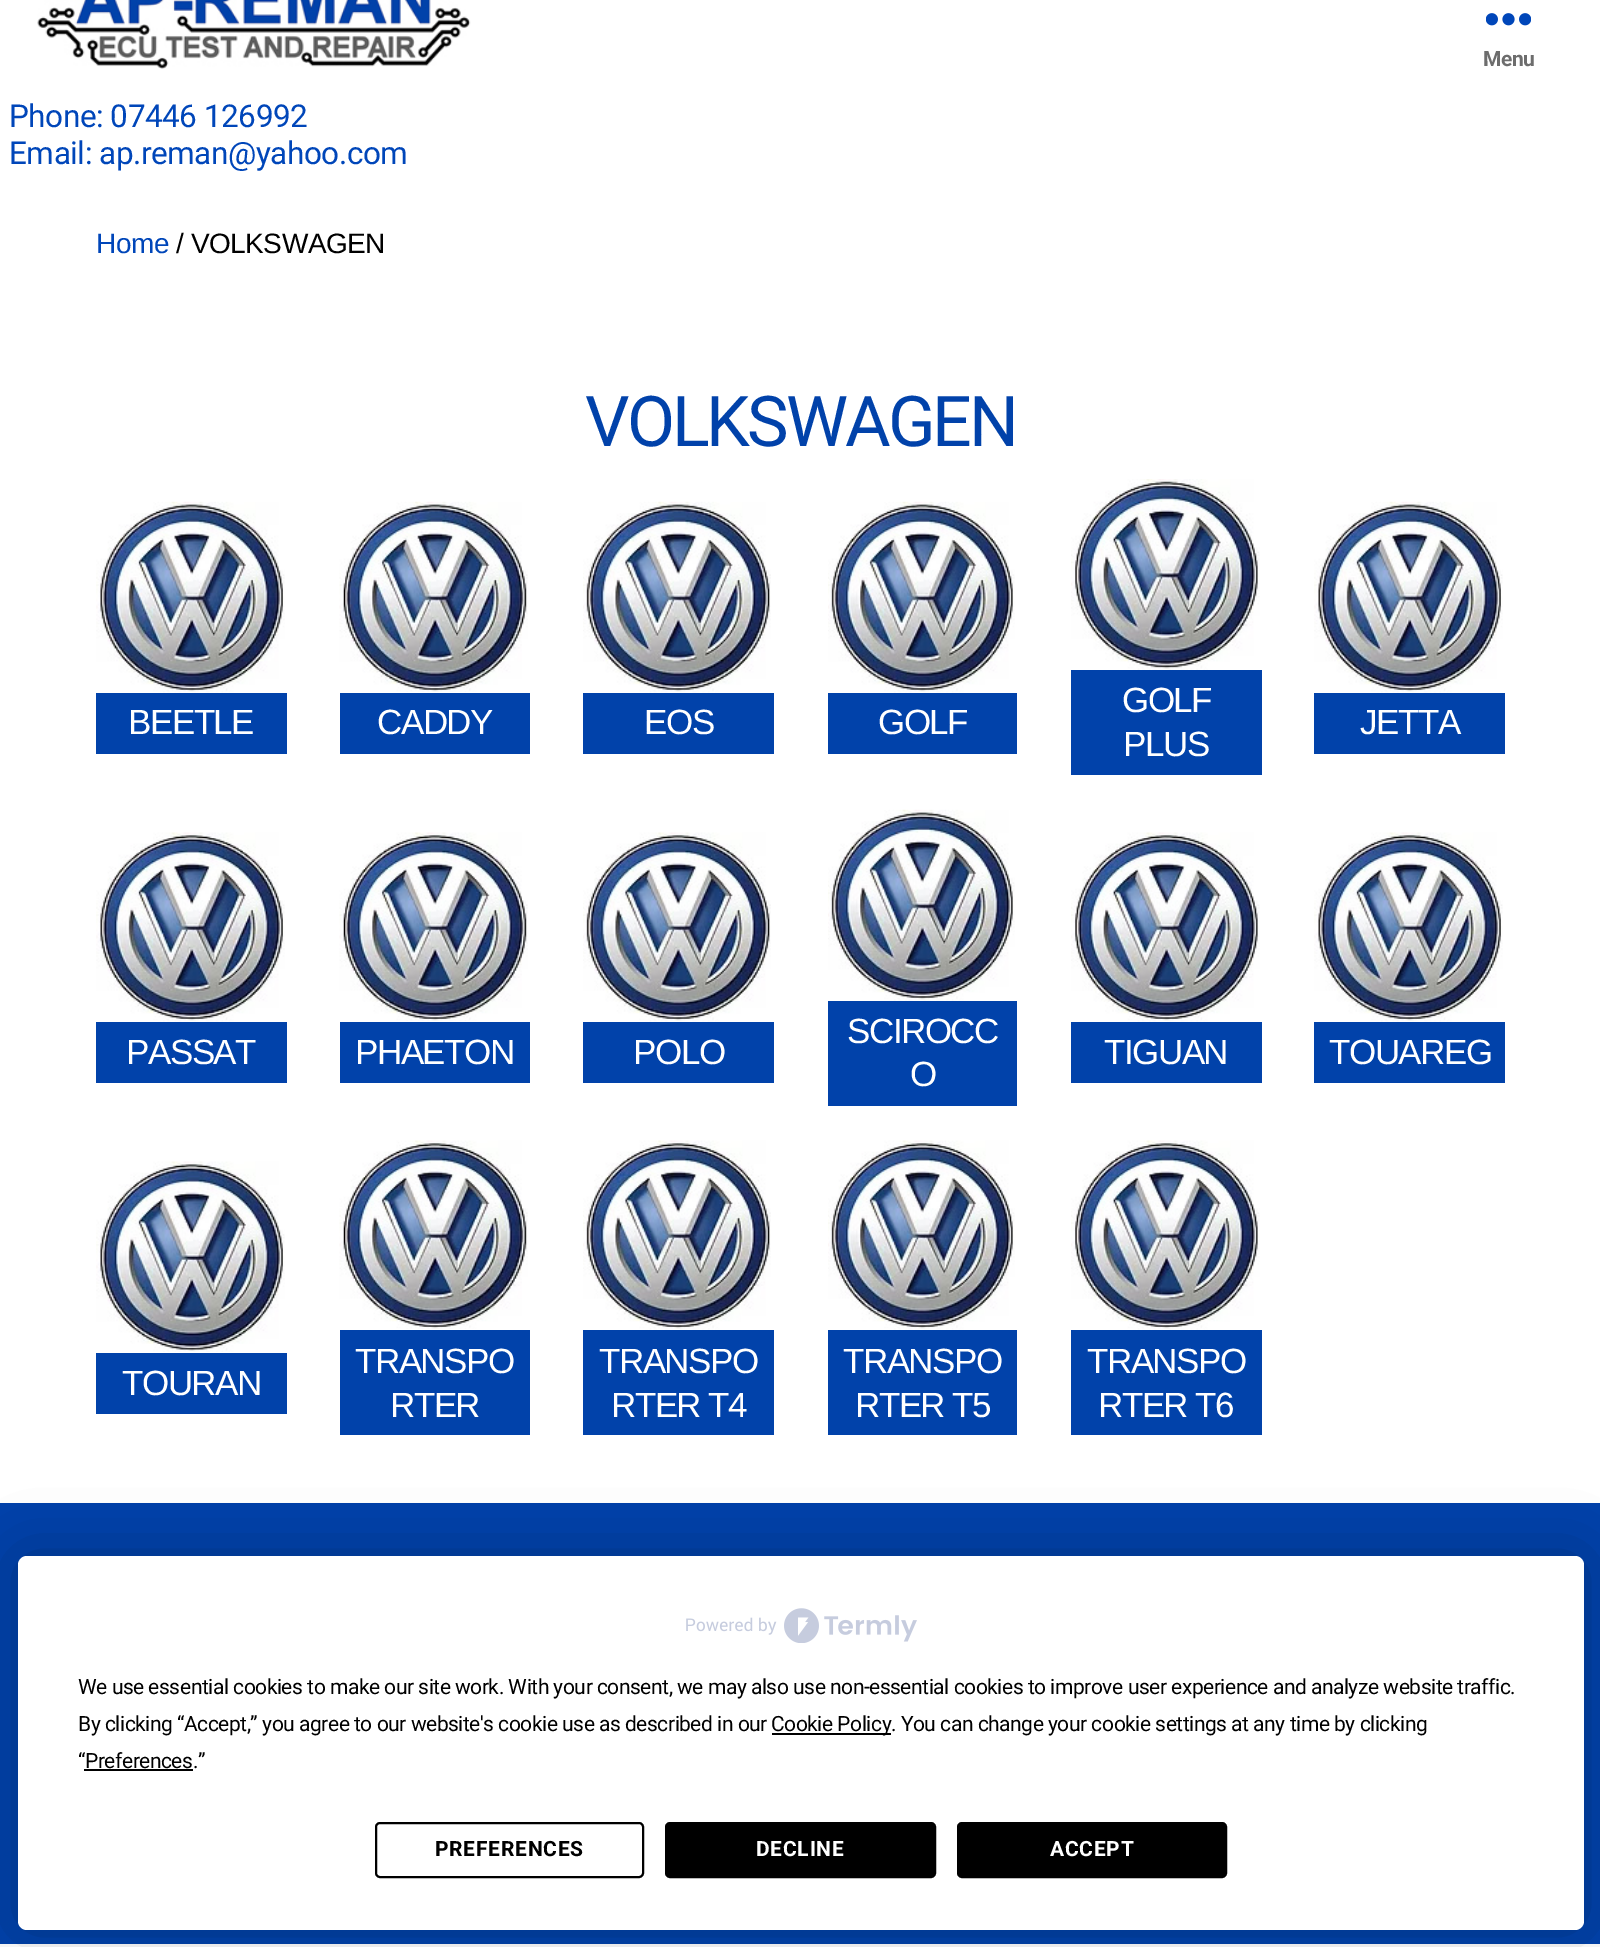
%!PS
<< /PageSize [1600 1947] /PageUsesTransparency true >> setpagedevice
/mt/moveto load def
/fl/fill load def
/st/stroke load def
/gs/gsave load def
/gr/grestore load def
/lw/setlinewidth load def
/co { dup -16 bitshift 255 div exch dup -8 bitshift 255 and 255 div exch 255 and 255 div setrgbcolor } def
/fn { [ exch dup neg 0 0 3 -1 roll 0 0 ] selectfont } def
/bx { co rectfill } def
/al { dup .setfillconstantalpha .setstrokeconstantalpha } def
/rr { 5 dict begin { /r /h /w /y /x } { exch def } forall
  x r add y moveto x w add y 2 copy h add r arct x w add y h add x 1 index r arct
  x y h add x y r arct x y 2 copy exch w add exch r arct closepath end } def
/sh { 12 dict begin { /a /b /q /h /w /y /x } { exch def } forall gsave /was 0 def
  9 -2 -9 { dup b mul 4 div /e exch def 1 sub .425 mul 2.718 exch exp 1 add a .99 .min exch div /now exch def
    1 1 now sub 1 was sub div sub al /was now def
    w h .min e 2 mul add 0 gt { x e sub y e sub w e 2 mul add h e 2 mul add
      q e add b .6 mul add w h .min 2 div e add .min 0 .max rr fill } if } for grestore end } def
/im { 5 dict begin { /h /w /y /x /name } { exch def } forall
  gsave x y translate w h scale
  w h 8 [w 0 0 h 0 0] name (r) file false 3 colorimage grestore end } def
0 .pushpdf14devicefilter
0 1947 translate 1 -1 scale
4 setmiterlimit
0 0 1600 1947 16#FFFFFF bx
(media/1.raw) 1486 13 45 13 im
(media/2.raw) 37 0 434 69 im
(media/3.raw) 96 501 189 192 im
96 693 191 61 16#0142AA bx
(media/4.raw) 339 501 189 191 im
340 693 190 61 16#0142AA bx
(media/5.raw) 583 501 188 192 im
583 693 191 61 16#0142AA bx
(media/6.raw) 828 501 187 192 im
828 693 189 61 16#0142AA bx
(media/7.raw) 1071 479 189 191 im
1071 670 191 105 16#0142AA bx
(media/3.raw) 1314 501 189 192 im
1314 693 191 61 16#0142AA bx
(media/8.raw) 96 832 189 190 im
96 1022 191 61 16#0142AA bx
(media/9.raw) 339 832 189 189 im
340 1022 190 61 16#0142AA bx
(media/10.raw) 583 832 188 190 im
583 1022 191 61 16#0142AA bx
(media/6.raw) 828 809 187 192 im
828 1001 189 105 16#0142AA bx
(media/11.raw) 1071 832 189 190 im
1071 1022 191 61 16#0142AA bx
(media/8.raw) 1314 832 189 190 im
1314 1022 191 61 16#0142AA bx
(media/12.raw) 96 1161 189 191 im
96 1353 191 61 16#0142AA bx
(media/9.raw) 339 1140 189 189 im
340 1330 190 105 16#0142AA bx
(media/10.raw) 583 1140 188 190 im
583 1330 191 105 16#0142AA bx
(media/13.raw) 828 1140 187 190 im
828 1330 189 105 16#0142AA bx
(media/11.raw) 1071 1140 189 190 im
1071 1330 191 105 16#0142AA bx
0 1503 1600 441 16#0142AA bx
16#000000 co
18 1556 1566 374 9 30.5 .25 sh
16#FFFFFF co
18 1556 1566 374 9 rr fl
(media/14.raw) 686 1608 231 35 im
772 1733 119 2 16#000000 bx
84 1769 109 2 16#000000 bx
2 lw
376 1823 267 54 4 rr st
666 1823 269 54 4 rr gs fl gr
st
958 1823 268 54 4 rr gs fl gr
st
/Roboto-Bold 21 fn
16#6D6D6D co
1483 66 mt -.47 0 (Menu) ashow
/Roboto-Regular 31.5 fn
16#0046B9 co
9 127 mt -.47 0 (Phone: 07446 126992) ashow
9 164 mt -.47 0 (Email: ap.reman@yahoo.com) ashow
/LiberationSans-Regular 28 fn
96 253 mt -.47 0 (Home) ashow
16#000000 co
176 253 mt -.47 0 (/ VOLKSWAGEN) ashow
/Roboto-Regular 70 fn
16#0142AA co
585 446 mt -3 0 (VOLKSWAGEN) ashow
/LiberationSans-Regular 35 fn
16#FFFFFF co
128 734 mt -1.5 0 (BEETLE) ashow
377 734 mt -1.5 0 (CADDY) ashow
644 734 mt -1.5 0 (EOS) ashow
878 734 mt -1.5 0 (GOLF) ashow
1122 712 mt -1.5 0 (GOLF) ashow
1123 756 mt -1.5 0 (PLUS) ashow
1360 734 mt -1.5 0 (JETTA) ashow
126 1064 mt -1.5 0 (PASSAT) ashow
355 1064 mt -1.5 0 (PHAETON) ashow
633 1064 mt -1.5 0 (POLO) ashow
847 1043 mt -1.5 0 (SCIROCC) ashow
910 1086 mt -1.5 0 (O) ashow
1104 1064 mt -1.5 0 (TIGUAN) ashow
1329 1064 mt -1.5 0 (TOUAREG) ashow
122 1395 mt -1.5 0 (TOURAN) ashow
355 1373 mt -1.5 0 (TRANSPO) ashow
390 1417 mt -1.5 0 (RTER) ashow
599 1373 mt -1.5 0 (TRANSPO) ashow
611 1417 mt -1.5 0 (RTER T4) ashow
843 1373 mt -1.5 0 (TRANSPO) ashow
855 1417 mt -1.5 0 (RTER T5) ashow
1087 1373 mt -1.5 0 (TRANSPO) ashow
1098 1417 mt -1.5 0 (RTER T6) ashow
/Roboto-Regular 21 fn
16#000000 co
78 1694 mt -.47 0 (We use essential cookies to make our site work. With your consent, we may also use non-essential cookies to improve user experience and analyze website traffic.) ashow
78 1731 mt -.47 0 (By clicking “Accept,” you agree to our website's cookie use as described in our) ashow
771 1731 mt -.47 0 (Cookie Policy. You can change your cookie settings at any time by clicking) ashow
78 1768 mt -.47 0 (“Preferences.”) ashow
/Roboto-Bold 21 fn
435 1856 mt .75 0 (PREFERENCES) ashow
16#FFFFFF co
756 1856 mt .75 0 (DECLINE) ashow
1050 1856 mt .75 0 (ACCEPT) ashow
.poppdf14devicefilter showpage
